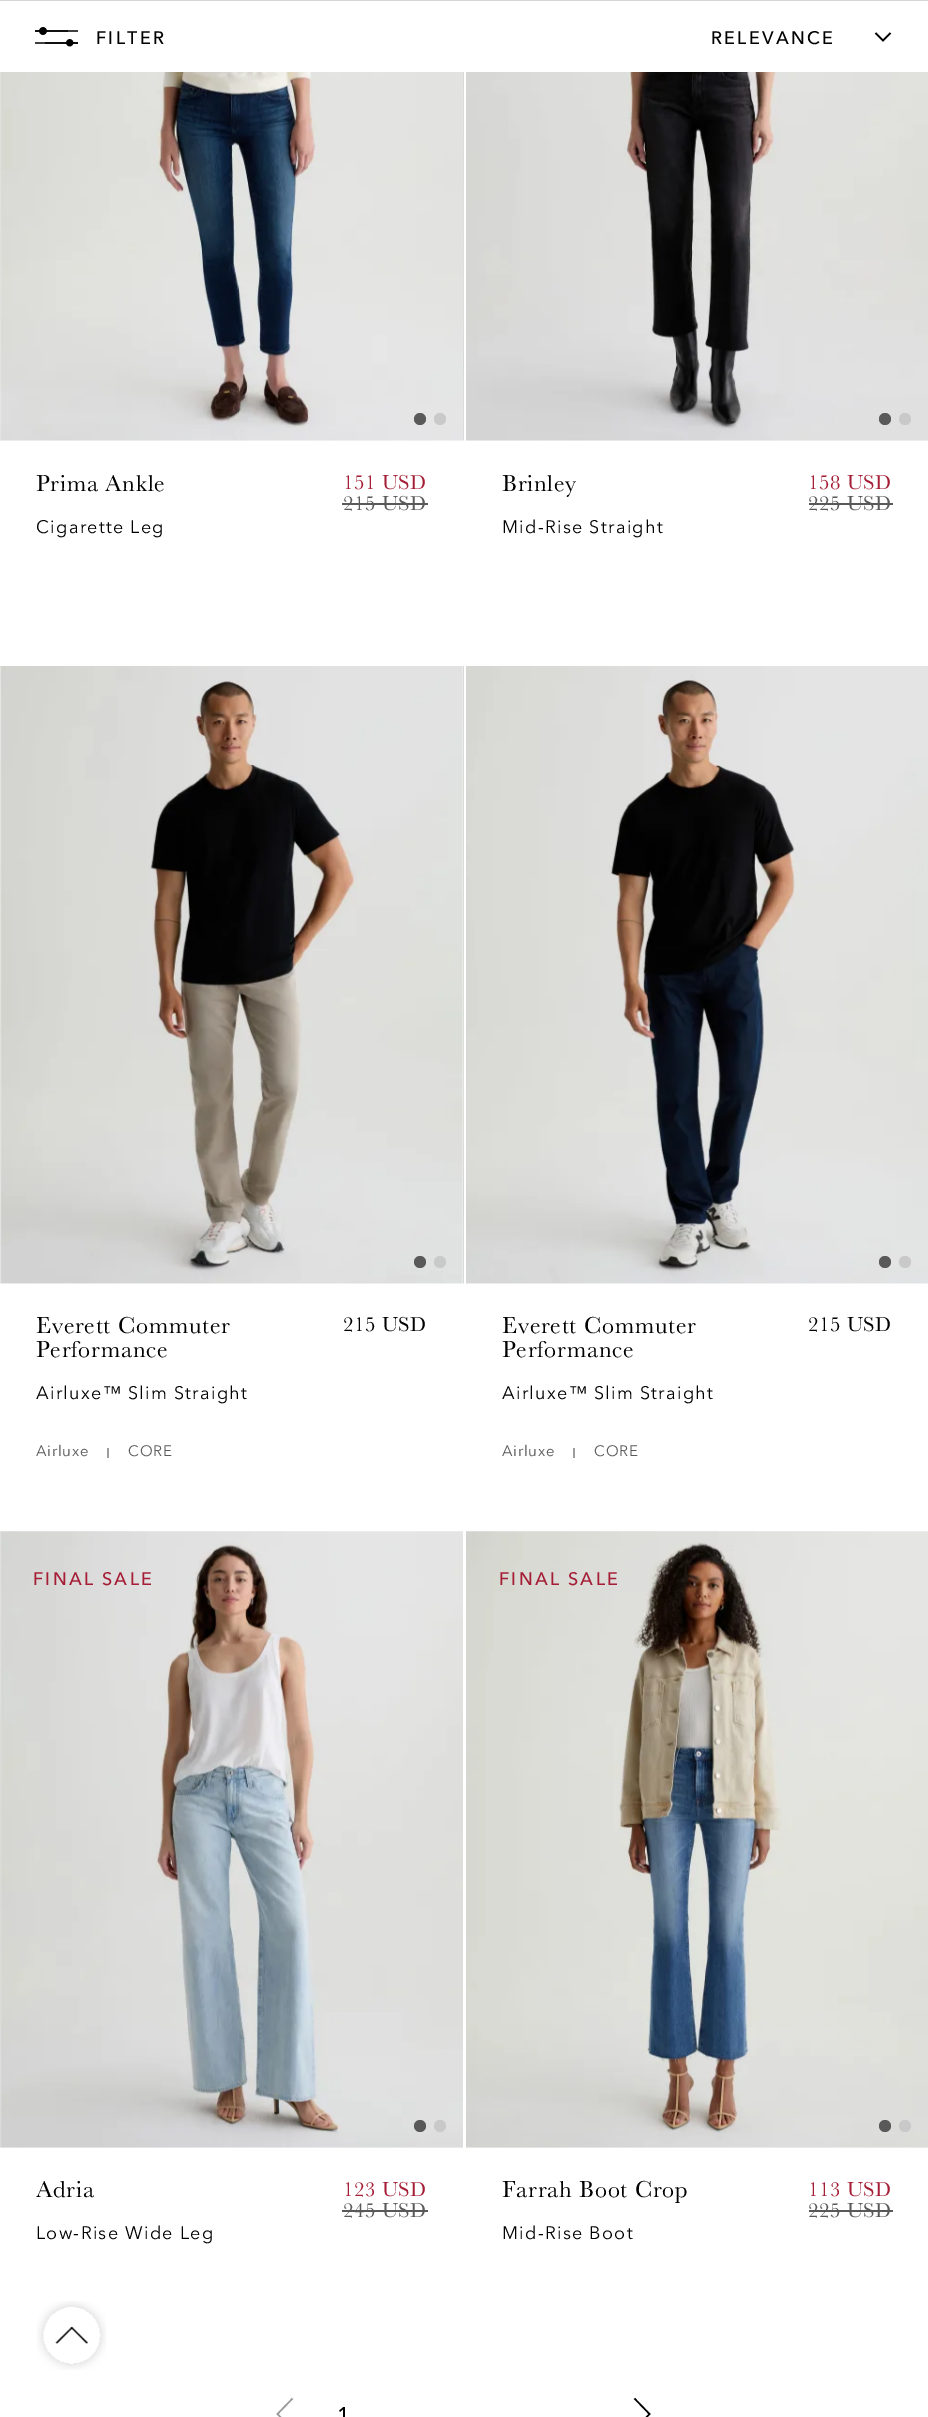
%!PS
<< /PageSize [928 2417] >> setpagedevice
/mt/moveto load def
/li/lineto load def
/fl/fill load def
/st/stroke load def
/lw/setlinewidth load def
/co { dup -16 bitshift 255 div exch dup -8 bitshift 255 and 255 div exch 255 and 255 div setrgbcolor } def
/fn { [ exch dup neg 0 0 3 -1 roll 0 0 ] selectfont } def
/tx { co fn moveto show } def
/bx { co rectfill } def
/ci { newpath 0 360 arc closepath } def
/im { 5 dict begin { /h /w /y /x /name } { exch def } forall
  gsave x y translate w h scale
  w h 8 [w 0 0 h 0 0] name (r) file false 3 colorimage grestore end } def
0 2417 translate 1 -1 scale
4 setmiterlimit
0 0 928 2417 16#FFFFFF bx
0 0 928 1 16#D6D6D6 bx
(media/1.raw) 35 27 43 20 im
16#000000 co
1.5 lw
890.5 33 mt 883 40.5 li 875.5 33 li st
(media/2.raw) 0 72 1 369 im
(media/3.raw) 0 72 463 369 im
(media/4.raw) 463 72 1 369 im
16#595959 co
420 419 6 ci fl
16#C9C9C9 co
440 419 6 ci fl
342 503 86 2 16#595959 bx
(media/5.raw) 466 72 462 369 im
885 419 6 ci fl
16#C9C9C9 co
905 419 6 ci fl
809 503 84 2 16#595959 bx
(media/6.raw) 0 666 1 618 im
(media/7.raw) 0 666 463 618 im
(media/8.raw) 463 666 1 618 im
420 1262 6 ci fl
16#C9C9C9 co
440 1262 6 ci fl
107 1448 2 10 16#9D9D9D bx
(media/9.raw) 466 666 462 618 im
16#595959 co
885 1262 6 ci fl
16#C9C9C9 co
905 1262 6 ci fl
573 1448 2 10 16#9D9D9D bx
(media/10.raw) 0 1531 1 617 im
(media/11.raw) 0 1531 463 617 im
16#595959 co
420 2126 6 ci fl
16#C9C9C9 co
440 2126 6 ci fl
342 2210 86 2 16#595959 bx
(media/12.raw) 466 1531 462 617 im
885 2126 6 ci fl
16#C9C9C9 co
905 2126 6 ci fl
809 2210 84 2 16#595959 bx
16#999999 co
292.5 2398.5 mt 277.5 2414 li 292.5 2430 li st
16#000000 co
634.5 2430 mt 649.5 2414 li 634.5 2398.5 li st
(media/13.raw) 37 2301 69 69 im
/AvenirNext-Medium 18 fn
96 44 mt 2.25 0 (FILTER) ashow
711 44 mt 2.25 0 (RELEVANCE) ashow
/Baskerville-Regular 24 fn
36 491 mt .75 0 (Prima Ankle) ashow
/Baskerville-Regular 21 fn
16#A51E36 co
343 489 mt .5 0 (151 USD) ashow
16#595959 co
343 510 mt .5 0 (215 USD) ashow
/AvenirNext-Regular 18 fn
16#000000 co
36 533 mt 1.3 0 (Cigarette Leg) ashow
/Baskerville-Regular 24 fn
502 491 mt .75 0 (Brinley) ashow
/Baskerville-Regular 21 fn
16#A51E36 co
808 489 mt .5 0 (158 USD) ashow
16#595959 co
808 510 mt .5 0 (225 USD) ashow
/AvenirNext-Regular 18 fn
16#000000 co
502 533 mt 1.3 0 (Mid-Rise Straight) ashow
/Baskerville-Regular 24 fn
36 1333 mt .75 0 (Everett Commuter) ashow
36 1357 mt .75 0 (Performance) ashow
/Baskerville-Regular 21 fn
343 1331 mt .5 0 (215 USD) ashow
/AvenirNext-Regular 18 fn
36 1399 mt 1.3 0 (Airluxe™ Slim Straight) ashow
/AvenirNext-Regular 15 fn
16#595959 co
36 1456 mt .75 0 (Airluxe) ashow
128 1456 mt .75 0 (CORE) ashow
/Baskerville-Regular 24 fn
16#000000 co
502 1333 mt .75 0 (Everett Commuter) ashow
502 1357 mt .75 0 (Performance) ashow
/Baskerville-Regular 21 fn
808 1331 mt .5 0 (215 USD) ashow
/AvenirNext-Regular 18 fn
502 1399 mt 1.3 0 (Airluxe™ Slim Straight) ashow
/AvenirNext-Regular 15 fn
16#595959 co
502 1456 mt .75 0 (Airluxe) ashow
594 1456 mt .75 0 (CORE) ashow
/AvenirNext-Medium 18 fn
16#A51E36 co
33 1585 mt 2.25 0 (FINAL SALE) ashow
/Baskerville-Regular 24 fn
16#000000 co
36 2197 mt .75 0 (Adria) ashow
/Baskerville-Regular 21 fn
16#A51E36 co
343 2196 mt .5 0 (123 USD) ashow
16#595959 co
343 2217 mt .5 0 (245 USD) ashow
/AvenirNext-Regular 18 fn
16#000000 co
36 2239 mt 1.3 0 (Low-Rise Wide Leg) ashow
/AvenirNext-Medium 18 fn
16#A51E36 co
499 1585 mt 2.25 0 (FINAL SALE) ashow
/Baskerville-Regular 24 fn
16#000000 co
502 2197 mt .75 0 (Farrah Boot Crop) ashow
/Baskerville-Regular 21 fn
16#A51E36 co
808 2196 mt .5 0 (113 USD) ashow
16#595959 co
808 2217 mt .5 0 (225 USD) ashow
/AvenirNext-Regular 18 fn
16#000000 co
502 2239 mt 1.3 0 (Mid-Rise Boot) ashow
(1) 337 2422 /AvenirNext-Medium 21 16#000000 tx
showpage
